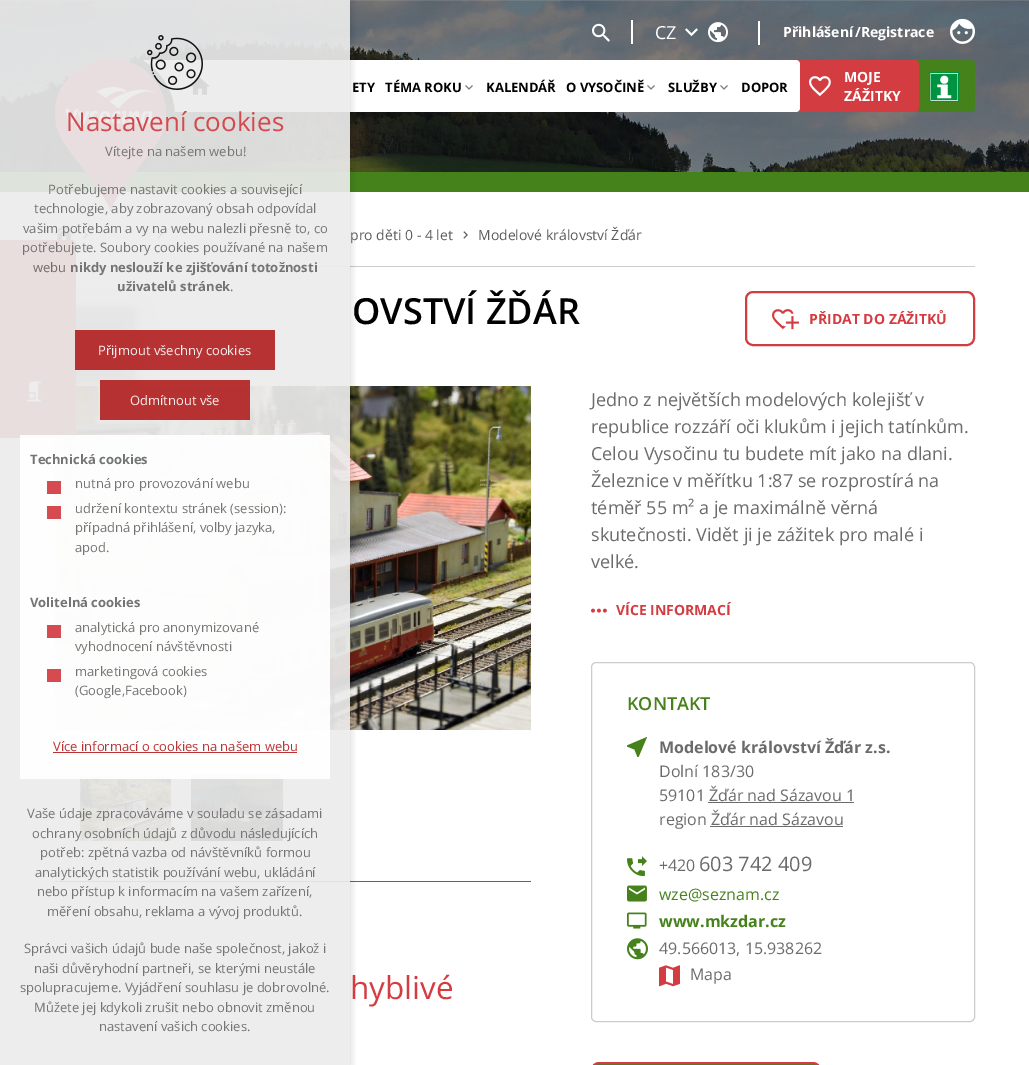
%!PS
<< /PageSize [1029 1065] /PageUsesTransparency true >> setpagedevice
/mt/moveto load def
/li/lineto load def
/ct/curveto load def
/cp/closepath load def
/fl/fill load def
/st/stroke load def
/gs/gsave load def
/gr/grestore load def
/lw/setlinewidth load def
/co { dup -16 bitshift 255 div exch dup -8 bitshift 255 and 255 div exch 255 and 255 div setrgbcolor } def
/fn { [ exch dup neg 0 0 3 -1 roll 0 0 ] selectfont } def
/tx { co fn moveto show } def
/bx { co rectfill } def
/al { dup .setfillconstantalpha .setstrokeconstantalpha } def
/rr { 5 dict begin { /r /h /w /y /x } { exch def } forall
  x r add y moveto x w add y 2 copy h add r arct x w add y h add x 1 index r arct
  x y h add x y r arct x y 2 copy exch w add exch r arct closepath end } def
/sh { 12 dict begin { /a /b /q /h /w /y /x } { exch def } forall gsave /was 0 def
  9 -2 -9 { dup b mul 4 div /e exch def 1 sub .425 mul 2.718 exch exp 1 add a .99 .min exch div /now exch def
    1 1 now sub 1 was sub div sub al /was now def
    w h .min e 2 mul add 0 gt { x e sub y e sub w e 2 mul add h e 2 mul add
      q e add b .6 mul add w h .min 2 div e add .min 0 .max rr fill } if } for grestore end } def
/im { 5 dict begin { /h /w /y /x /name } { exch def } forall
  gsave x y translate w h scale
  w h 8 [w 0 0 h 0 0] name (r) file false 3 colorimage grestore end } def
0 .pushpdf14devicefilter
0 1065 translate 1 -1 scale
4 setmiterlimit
0 0 1029 1065 16#FFFFFF bx
(media/1.raw) 0 0 1029 172 im
0 172 1029 20 16#46821C bx
0.4 al
0 0 1029 172 16#000000 bx
1 al
(media/2.raw) 592 23 18 19 im
631 20 2 24 16#FFFFFF bx
(media/3.raw) 685 28 13 9 im
(media/4.raw) 708 22 20 21 im
758 21 2 24 16#FFFFFF bx
(media/5.raw) 950 18 25 26 im
(media/7.raw) 143 60 32 54 im
(media/6.raw) 55 58 111 153 im
175 60 615 52 16#FFFFFF bx
(media/8.raw) 190 77 20 18 im
(media/9.raw) 465 85 8 5 im
(media/9.raw) 647 85 8 5 im
(media/9.raw) 720 85 8 5 im
16#46821C co
911 60 mt 971 60 li 973 60 975 62 975 64 ct 975 108 li 975 110 973 112 971 112 ct 911 112 li cp fl
16#D33C41 co
791 60 mt 915 60 li 917 60 919 62 919 64 ct 919 108 li 919 110 917 112 915 112 ct 791 112 li cp fl
16#FFFFFF co
790 60 mt 796 60 li 798 60 800 62 800 64 ct 800 108 li 800 110 798 112 796 112 ct 790 112 li cp fl
(media/10.raw) 809 76 22 20 im
(media/11.raw) 929 71 31 31 im
76 266 899 1 16#CCCCCC bx
(media/13.raw) 55 224 18 16 im
(media/14.raw) 83 231 5 8 im
(media/14.raw) 157 231 5 8 im
(media/14.raw) 285 231 5 8 im
(media/16.raw) 55 386 476 344 im
55 881 476 1 16#46821C bx
(media/17.raw) 80 775 91 66 im
(media/18.raw) 191 775 92 66 im
16#000000 co
-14 306 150 78 5 3 .23 sh
-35 310 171 78 5 10 .19 sh
16#C44847 co
76 434 mt 76 436 74 438 72 438 ct -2 438 li -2 240 li 72 240 li 74 240 76 242 76 244 ct cp fl
(media/25.raw) 27 381 14 21 im
gs
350 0 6 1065 rectclip
16#010101 co
0 0 350 1065 0 5 .18 sh
gr
0.92 al
0 0 350 1065 16#EBEBEB bx
1 al
(media/12.raw) 147 35 56 55 im
0.92 al
75 330 200 40 16#B22222 bx
100 380 150 40 16#B22222 bx
20 435 310 344 16#FFFFFF bx
1 al
47 481 14 13 16#D64B50 bx
47 506 14 13 16#D64B50 bx
47 625 14 13 16#D64B50 bx
47 669 14 13 16#D64B50 bx
53 752 244 1 16#B83434 bx
(media/14.raw) 463 231 5 8 im
16#D33C41 co
2 lw
746 292 228 53 7 rr st
(media/15.raw) 772 309 27 21 im
(media/19.raw) 591 608 16 5 im
16#CCCCCC co
1 lw
591.5 662.5 383 359 4.5 rr st
16#46821C co
647 737 mt 638.5 757 li 637.5 757 li 634.5 749.5 li 627 746.5 li 627 745.5 li cp fl
708 802 146 1 16#6B6B6B bx
710 826 133 1 16#6B6B6B bx
(media/20.raw) 627 856 20 21 im
(media/21.raw) 627 885 20 17 im
(media/22.raw) 627 912 20 17 im
(media/23.raw) 627 938 21 22 im
(media/24.raw) 659 965 21 22 im
16#46821C co
592 1063 228 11 7 rr gs fl gr
16#D33C41 co
2 lw
st
(CZ) 655 39 /OpenSans-Regular 18 16#FFFFFF tx
(Přihlášení) 783 37 /OpenSans-Bold 14 16#FFFFFF tx
(/Registrace) 855 37 /OpenSans-Bold 14 16#FFFFFF tx
(ETY) 352 92 /OpenSans-Bold 13 16#000000 tx
(TÉMA ROKU) 385 92 /OpenSans-Bold 13 16#000000 tx
(KALENDÁŘ) 486 92 /OpenSans-Bold 13 16#000000 tx
(O VYSOČINĚ) 566 92 /OpenSans-Bold 13 16#000000 tx
(SLUŽBY) 668 92 /OpenSans-Bold 13 16#000000 tx
(DOPOR) 741 92 /OpenSans-Bold 13 16#000000 tx
(MOJE) 844 82 /OpenSans-Bold 14 16#FFFFFF tx
(ZÁŽITKY) 844 101 /OpenSans-Bold 14 16#FFFFFF tx
(Nastavení cookies) 66 131 /OpenSans-Regular 26 16#D4494E tx
(Vítejte na našem webu!) 105 156 /OpenSans-Regular 13 16#747474 tx
(Potřebujeme nastavit cookies a související) 48 194 /OpenSans-Regular 13 16#747474 tx
(technologie, aby zobrazovaný obsah odpovídal) 34 213 /OpenSans-Regular 13 16#747474 tx
(vašim potřebám a vy na webu nalezli přesně to, co) 23 233 /OpenSans-Regular 13 16#747474 tx
(potřebujete. Soubory cookies používané na našem) 22 252 /OpenSans-Regular 13 16#747474 tx
(webu) 33 272 /OpenSans-Regular 13 16#726868 tx
(nikdy neslouží ke zjišťování totožnosti) 70 272 /OpenSans-Bold 13 16#747474 tx
(uživatelů stránek) 117 291 /OpenSans-Bold 13 16#747474 tx
(.) 230 291 /OpenSans-Regular 13 16#747474 tx
(Přijmout všechny cookies) 98 355 /OpenSans-Regular 13 16#F9EFEF tx
(Odmítnout vše) 130 405 /OpenSans-Regular 13 16#F9EFEF tx
(Technická cookies) 30 464 /OpenSans-Bold 13 16#747474 tx
(nutná pro provozování webu) 75 488 /OpenSans-Regular 13 16#747474 tx
(udržení kontextu stránek \(session\):) 75 513 /OpenSans-Regular 13 16#747474 tx
(případná přihlášení, volby jazyka,) 75 532 /OpenSans-Regular 13 16#747474 tx
(apod.) 75 552 /OpenSans-Regular 13 16#747474 tx
(Volitelná cookies) 30 607 /OpenSans-Bold 13 16#747474 tx
(analytická pro anonymizované) 75 632 /OpenSans-Regular 13 16#747474 tx
(vyhodnocení návštěvnosti) 75 651 /OpenSans-Regular 13 16#747474 tx
(marketingová cookies) 75 676 /OpenSans-Regular 13 16#747474 tx
(\(Google,Facebook\)) 75 695 /OpenSans-Regular 13 16#747474 tx
(Více informací o cookies na našem webu) 53 751 /OpenSans-Regular 13 16#B83434 tx
(Vaše údaje zpracováváme v souladu se zásadami) 27 818 /OpenSans-Regular 13 16#747474 tx
(ochrany osobních údajů z důvodu následujících) 32 838 /OpenSans-Regular 13 16#747474 tx
(potřeb: zpětná vazba od návštěvníků formou) 40 857 /OpenSans-Regular 13 16#747474 tx
(analytických statistik používání webu, ukládání) 35 877 /OpenSans-Regular 13 16#747474 tx
(nebo přístup k informacím na vašem zařízení,) 37 896 /OpenSans-Regular 13 16#747474 tx
(měření obsahu, reklama a vývoj produktů.) 47 916 /OpenSans-Regular 13 16#747474 tx
(Správci vašich údajů bude naše společnost, jakož i) 24 953 /OpenSans-Regular 13 16#747474 tx
(naši důvěryhodní partneři, se kterými neustále) 34 973 /OpenSans-Regular 13 16#747474 tx
(spolupracujeme. Vyjádření souhlasu je dobrovolné.) 20 992 /OpenSans-Regular 13 16#747474 tx
(Můžete jej kdykoli zrušit nebo obnovit změnou) 34 1012 /OpenSans-Regular 13 16#747474 tx
(nastavení vašich cookies.) 99 1031 /OpenSans-Regular 13 16#747474 tx
(pro děti 0 - 4 let) 350 240 /OpenSans-Regular 14 16#5C5C5C tx
(Modelové království Žďár) 478 240 /OpenSans-Regular 14 16#5C5C5C tx
(OVSTVÍ ŽĎÁR) 352 324 /OpenSans-SemiBold 36 16#000000 tx
(PŘIDAT DO ZÁŽITKŮ) 809 324 /OpenSans-Bold 14 16#D33C41 tx
(Jedno z největších modelových kolejišť v) 591 406 /OpenSans-Regular 18 16#6B6B6B tx
(republice rozzáří oči klukům i jejich tatínkům.) 591 433 /OpenSans-Regular 18 16#6B6B6B tx
(Celou Vysočinu tu budete mít jako na dlani.) 591 460 /OpenSans-Regular 18 16#6B6B6B tx
(Železnice v měřítku 1:87 se rozprostírá na) 591 487 /OpenSans-Regular 18 16#6B6B6B tx
(téměř 55 m² a je maximálně věrná) 591 514 /OpenSans-Regular 18 16#6B6B6B tx
(skutečnosti. Vidět ji je zážitek pro malé i) 591 541 /OpenSans-Regular 18 16#6B6B6B tx
(velké.) 591 568 /OpenSans-Regular 18 16#6B6B6B tx
(VÍCE INFORMACÍ) 616 615 /OpenSans-Bold 14 16#D33C41 tx
(KONTAKT) 627 710 /OpenSans-SemiBold 18 16#46821C tx
(Modelové království Žďár z.s.) 659 753 /OpenSans-Bold 16 16#6B6B6B tx
(Dolní 183/30) 659 777 /OpenSans-Regular 16 16#6B6B6B tx
(59101 Žďár nad Sázavou 1) 659 801 /OpenSans-Regular 16 16#6B6B6B tx
(region Žďár nad Sázavou) 659 825 /OpenSans-Regular 16 16#6B6B6B tx
(+420) 659 871 /OpenSans-Regular 16 16#6B6B6B tx
(603 742 409) 699 871 /OpenSans-Regular 20 16#6B6B6B tx
(wze@seznam.cz) 659 900 /OpenSans-Regular 16 16#46821C tx
(www.mkzdar.cz) 659 927 /OpenSans-Bold 16 16#46821C tx
(49.566013, 15.938262) 659 954 /OpenSans-Regular 16 16#6B6B6B tx
(Mapa) 690 980 /OpenSans-Regular 16 16#6B6B6B tx
(hyblivé) 350 999 /OpenSans-Regular 31.5 16#D33C41 tx
.poppdf14devicefilter showpage
